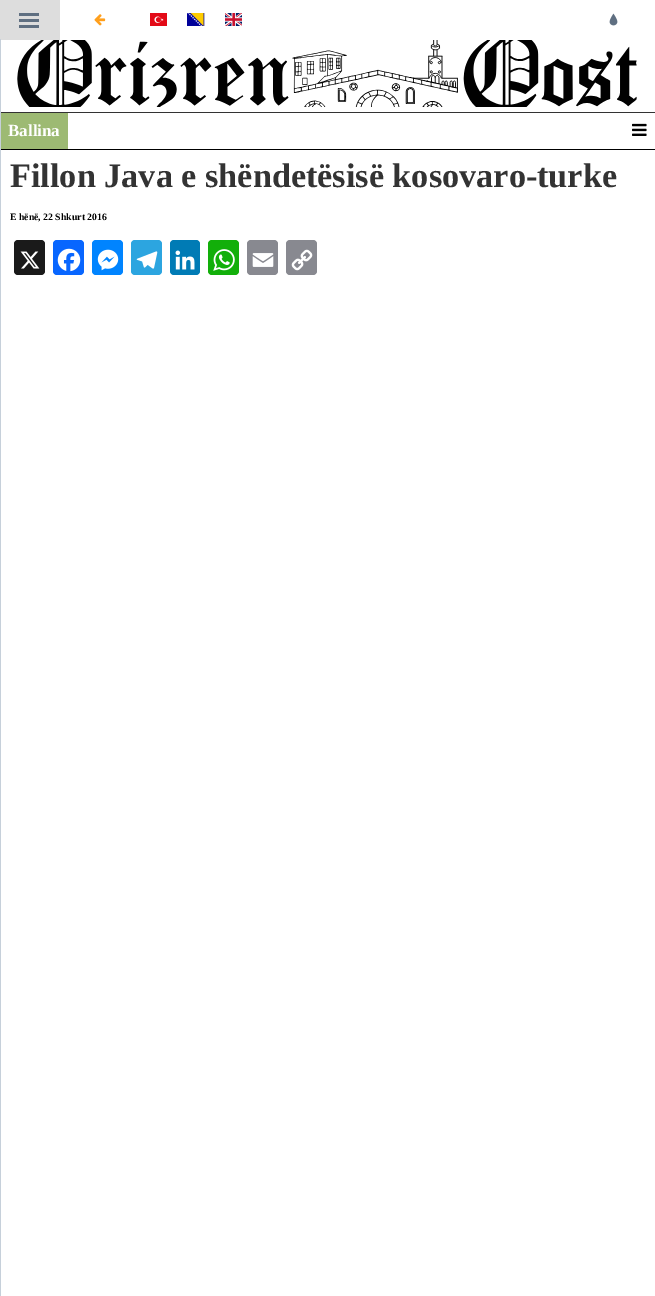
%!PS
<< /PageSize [655 1296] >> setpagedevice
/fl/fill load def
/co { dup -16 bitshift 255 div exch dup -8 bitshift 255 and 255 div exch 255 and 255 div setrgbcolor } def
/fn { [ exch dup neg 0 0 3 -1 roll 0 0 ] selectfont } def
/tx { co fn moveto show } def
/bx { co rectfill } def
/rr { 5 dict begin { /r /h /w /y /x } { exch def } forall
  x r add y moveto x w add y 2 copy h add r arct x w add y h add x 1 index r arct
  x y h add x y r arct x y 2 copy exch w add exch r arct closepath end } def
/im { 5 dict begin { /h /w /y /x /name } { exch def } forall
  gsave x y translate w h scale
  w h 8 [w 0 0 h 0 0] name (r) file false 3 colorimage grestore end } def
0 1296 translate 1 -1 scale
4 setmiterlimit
0 0 655 1296 16#FFFFFF bx
0 0 60 40 16#DDDDDD bx
19 13 20 3 16#5F6F81 bx
19 19 20 3 16#5F6F81 bx
19 25 20 3 16#5F6F81 bx
0 112 655 1 16#333333 bx
0 149 655 1 16#000000 bx
0 39 1 1257 16#C6D0DA bx
(media/1.raw) 94 14 12 12 im
(media/2.raw) 150 13 17 13 im
(media/3.raw) 187 13 18 13 im
(media/4.raw) 225 13 17 13 im
(media/5.raw) 609 13 9 13 im
(media/6.raw) 17 40 620 67 im
1 113 67 36 16#9DBA73 bx
(media/7.raw) 632 123 15 13 im
16#1A1A1A co
14 240 31 35 4 rr fl
(media/8.raw) 20 251 20 18 im
16#0866FF co
53 240 31 35 4 rr fl
(media/9.raw) 57 248 24 24 im
16#0084FF co
92 240 31 35 4 rr fl
(media/10.raw) 97 249 22 22 im
16#2CA5E0 co
131 240 31 35 4 rr fl
(media/11.raw) 136 251 22 18 im
16#007BB5 co
170 240 30 35 4 rr fl
(media/12.raw) 175 250 20 20 im
16#12AF0A co
208 240 31 35 4 rr fl
(media/13.raw) 213 249 22 22 im
16#888990 co
247 240 31 35 4 rr fl
(media/14.raw) 252 253 22 14 im
286 240 31 35 4 rr fl
(media/15.raw) 291 249 22 22 im
(Ballina) 8 136 /LiberationSerif-Bold 17 16#FFFFFF tx
(Fillon Java e shëndetësisë kosovaro-turke) 10 187 /LiberationSerif-Bold 34.25 16#333333 tx
(E hënë, 22 Shkurt 2016) 10 220 /LiberationSerif-Bold 9.75 16#000000 tx
showpage
